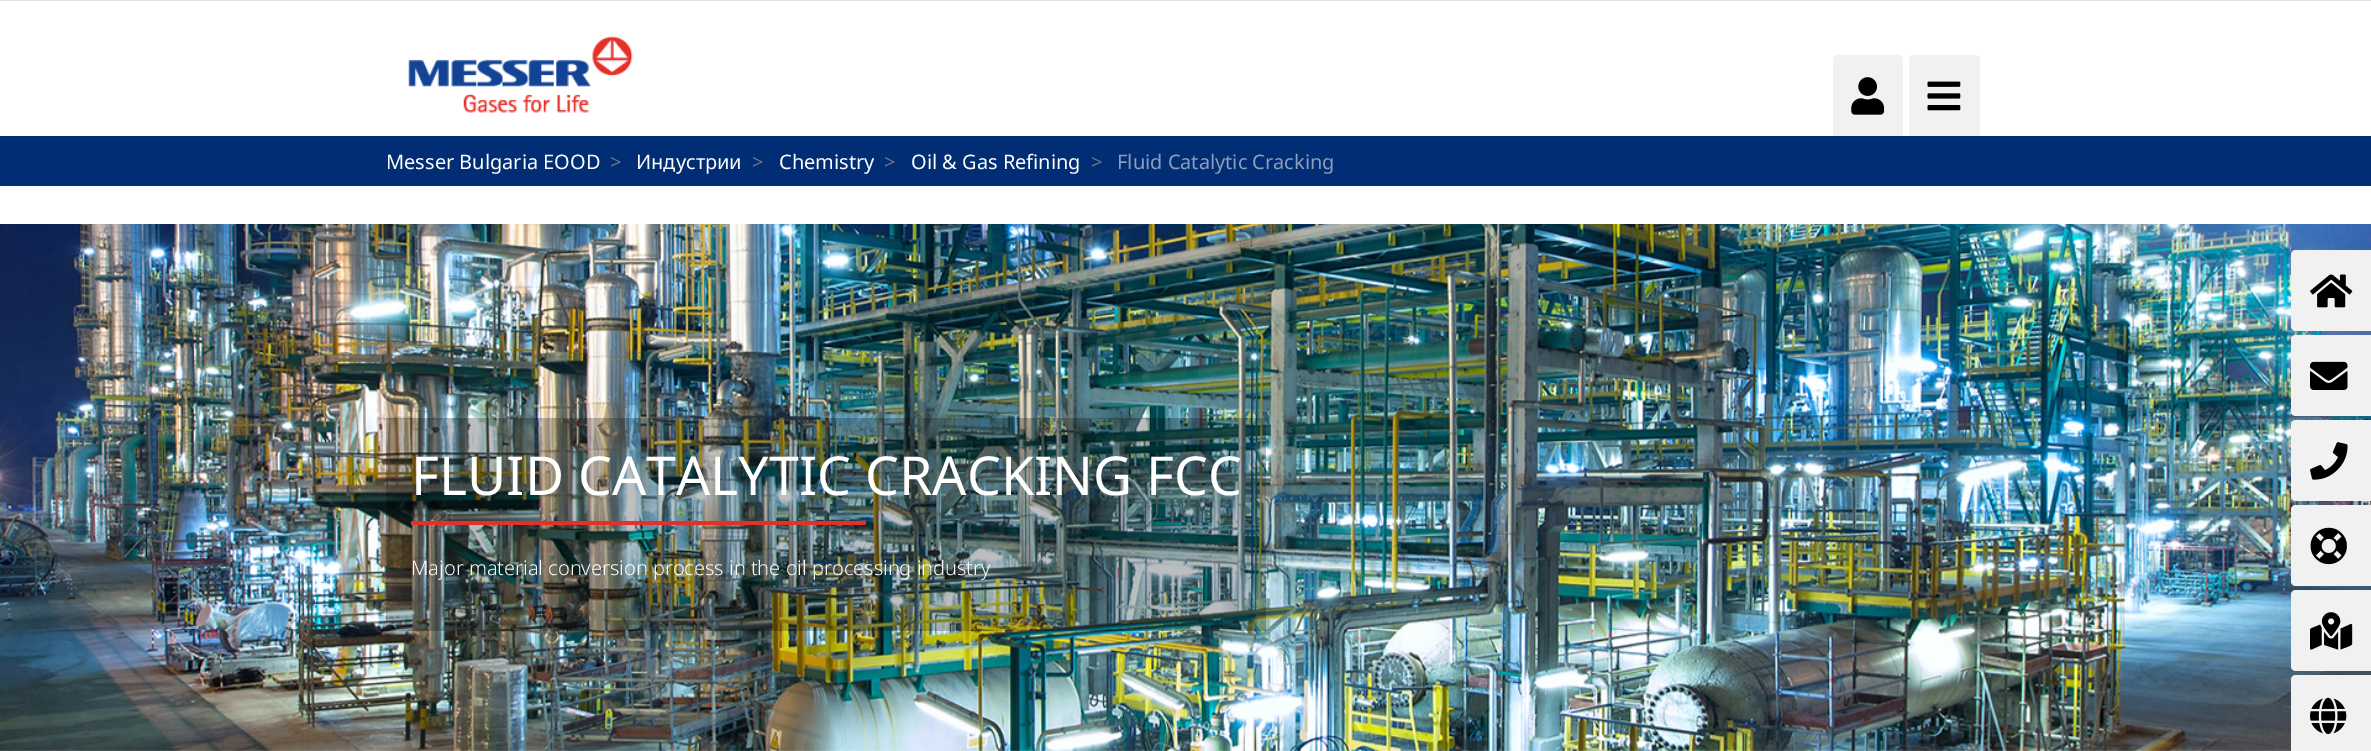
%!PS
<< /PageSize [2371 751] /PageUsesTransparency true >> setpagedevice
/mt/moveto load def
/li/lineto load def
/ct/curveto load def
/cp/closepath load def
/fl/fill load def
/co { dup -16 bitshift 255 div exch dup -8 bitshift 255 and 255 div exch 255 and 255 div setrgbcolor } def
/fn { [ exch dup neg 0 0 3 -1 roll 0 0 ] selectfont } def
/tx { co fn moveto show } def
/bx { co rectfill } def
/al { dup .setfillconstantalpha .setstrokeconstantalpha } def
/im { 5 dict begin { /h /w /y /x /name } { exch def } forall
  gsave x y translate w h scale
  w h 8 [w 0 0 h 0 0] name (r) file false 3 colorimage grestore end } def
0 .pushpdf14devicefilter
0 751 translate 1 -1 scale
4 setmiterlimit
0 0 2371 751 16#FFFFFF bx
0 0 2371 1 16#DEE2E6 bx
(media/1.raw) 408 36 225 77 im
16#F1F1F1 co
1838 55 mt 1898 55 li 1901 55 1903 57 1903 60 ct 1903 136 li 1833 136 li 1833 60 li 1833 57 1835 55 1838 55 ct cp fl
(media/2.raw) 1851 77 34 38 im
1914 55 mt 1975 55 li 1978 55 1980 57 1980 60 ct 1980 136 li 1909 136 li 1909 60 li 1909 57 1911 55 1914 55 ct cp fl
(media/3.raw) 1927 81 34 30 im
0 136 2371 50 16#002D73 bx
(media/4.raw) 0 224 2371 527 im
0.25 al
386 418 880 213 16#000000 bx
1 al
411 521 455 4 16#E3312A bx
16#F1F1F1 co
2296 250 mt 2371 250 li 2371 331 li 2296 331 li 2293 331 2291 329 2291 326 ct 2291 255 li 2291 252 2293 250 2296 250 ct cp fl
(media/5.raw) 2310 274 43 34 im
2296 335 mt 2371 335 li 2371 416 li 2296 416 li 2293 416 2291 414 2291 411 ct 2291 340 li 2291 337 2293 335 2296 335 ct cp fl
(media/6.raw) 2310 361 38 29 im
2296 420 mt 2371 420 li 2371 501 li 2296 501 li 2293 501 2291 499 2291 496 ct 2291 425 li 2291 422 2293 420 2296 420 ct cp fl
(media/7.raw) 2310 442 38 38 im
2296 505 mt 2371 505 li 2371 586 li 2296 586 li 2293 586 2291 584 2291 581 ct 2291 510 li 2291 507 2293 505 2296 505 ct cp fl
(media/8.raw) 2310 527 37 38 im
2296 590 mt 2371 590 li 2371 671 li 2296 671 li 2293 671 2291 669 2291 666 ct 2291 595 li 2291 592 2293 590 2296 590 ct cp fl
(media/9.raw) 2310 612 43 38 im
2296 675 mt 2371 675 li 2371 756 li 2296 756 li 2293 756 2291 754 2291 751 ct 2291 680 li 2291 677 2293 675 2296 675 ct cp fl
(media/10.raw) 2310 697 37 38 im
(Messer Bulgaria EOOD) 386 169 /NotoSans-Italic 20 16#FFFFFF tx
(>) 610 169 /NotoSans-Italic 20 16#6C757D tx
(Индустрии) 636 169 /NotoSans-Italic 20 16#FFFFFF tx
(>) 752 169 /NotoSans-Italic 20 16#6C757D tx
(Chemistry) 779 169 /NotoSans-Italic 20 16#FFFFFF tx
(>) 884 169 /NotoSans-Italic 20 16#6C757D tx
(Oil & Gas Refining) 911 169 /NotoSans-Italic 20 16#FFFFFF tx
(>) 1091 169 /NotoSans-Italic 20 16#6C757D tx
(Fluid Catalytic Cracking) 1117 169 /NotoSans-Italic 20 16#8B9EBC tx
(FLUID CATALYTIC CRACKING FCC) 411 495 /NotoSans-Italic 53.75 16#FFFFFF tx
(Major material conversion process in the oil processing industry) 411 575 /NotoSans-LightItalic 20 16#FFFFFF tx
.poppdf14devicefilter showpage
